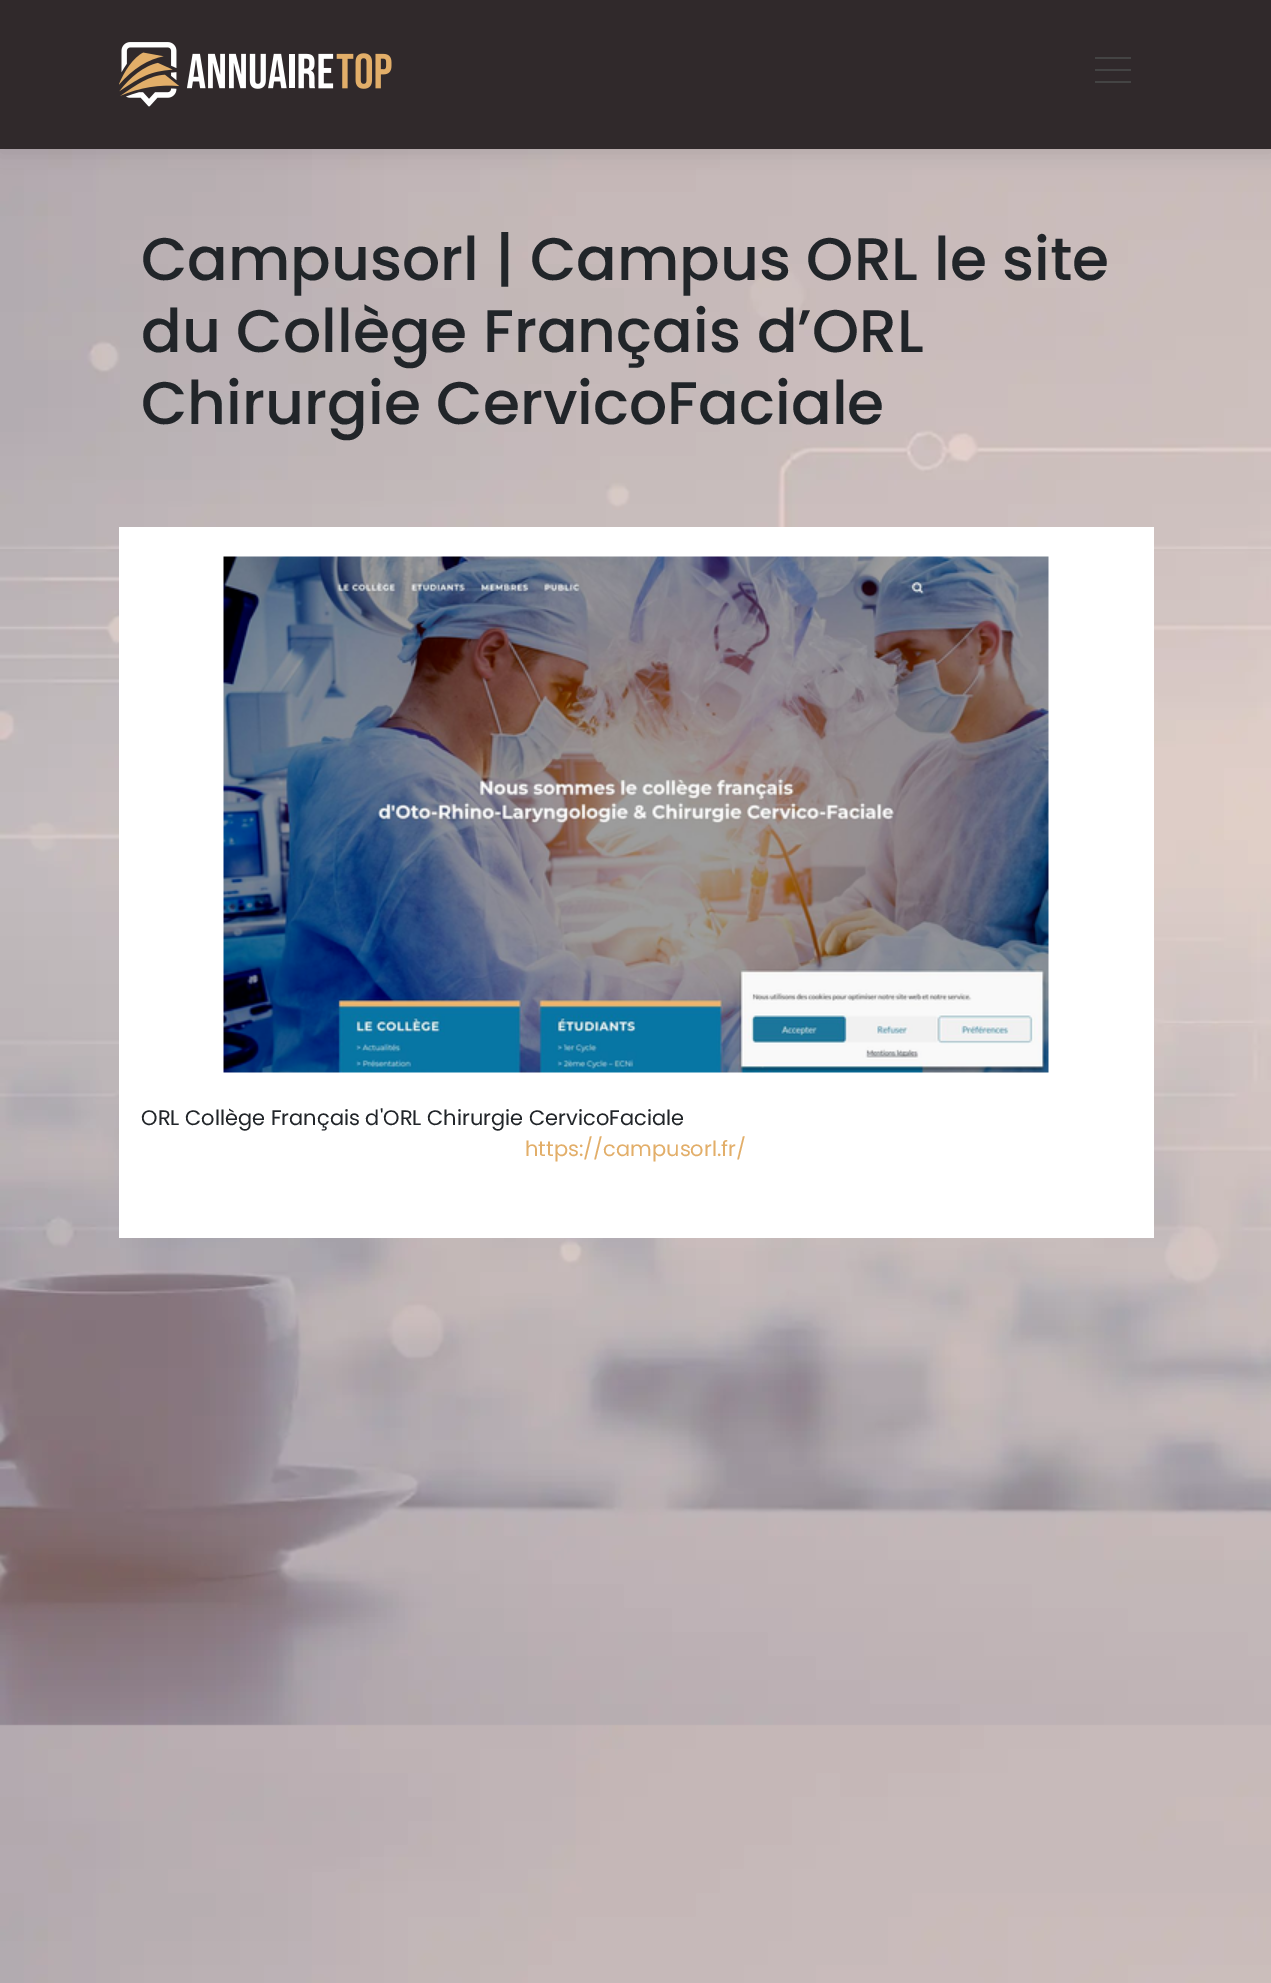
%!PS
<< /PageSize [1271 1983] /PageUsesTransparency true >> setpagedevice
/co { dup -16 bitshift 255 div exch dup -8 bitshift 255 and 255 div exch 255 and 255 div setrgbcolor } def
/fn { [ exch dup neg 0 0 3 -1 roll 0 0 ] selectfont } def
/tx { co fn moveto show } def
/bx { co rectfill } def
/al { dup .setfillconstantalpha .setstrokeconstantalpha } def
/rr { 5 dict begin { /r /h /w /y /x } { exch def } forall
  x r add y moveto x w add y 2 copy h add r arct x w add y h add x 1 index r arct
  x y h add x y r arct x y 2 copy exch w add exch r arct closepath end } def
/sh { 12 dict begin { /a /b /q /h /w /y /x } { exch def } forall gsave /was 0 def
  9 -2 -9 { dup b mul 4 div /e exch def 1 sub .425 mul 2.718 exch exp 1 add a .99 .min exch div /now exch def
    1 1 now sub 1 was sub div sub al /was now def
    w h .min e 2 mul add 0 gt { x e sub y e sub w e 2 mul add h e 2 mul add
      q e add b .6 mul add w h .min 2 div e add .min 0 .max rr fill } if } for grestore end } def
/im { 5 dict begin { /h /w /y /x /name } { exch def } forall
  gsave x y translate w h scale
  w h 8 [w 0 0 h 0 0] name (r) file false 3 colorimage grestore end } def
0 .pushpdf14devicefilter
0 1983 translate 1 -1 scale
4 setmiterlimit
0 0 1271 1983 16#FFFFFF bx
(media/1.raw) 0 149 1271 1834 im
16#000000 co
0 3 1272 149 0 10 .1 sh
0 0 1271 149 16#30292B bx
(media/2.raw) 119 42 273 65 im
1095 57 36 2 16#444444 bx
1095 69 36 2 16#444444 bx
1095 81 36 2 16#444444 bx
119 527 1035 711 16#FFFFFF bx
(media/3.raw) 223 556 826 517 im
(Campusorl | Campus ORL le site) 141 280 /Poppins-Medium 60 16#212529 tx
(du Collège Français d’ORL) 141 352 /Poppins-Medium 60 16#212529 tx
(Chirurgie CervicoFaciale) 141 424 /Poppins-Medium 60 16#212529 tx
(ORL Collège Français d'ORL Chirurgie CervicoFaciale) 141 1125 /Poppins-Regular 21 16#212529 tx
(https://campusorl.fr/) 525 1156 /Poppins-Regular 21 16#E2AE69 tx
.poppdf14devicefilter showpage
